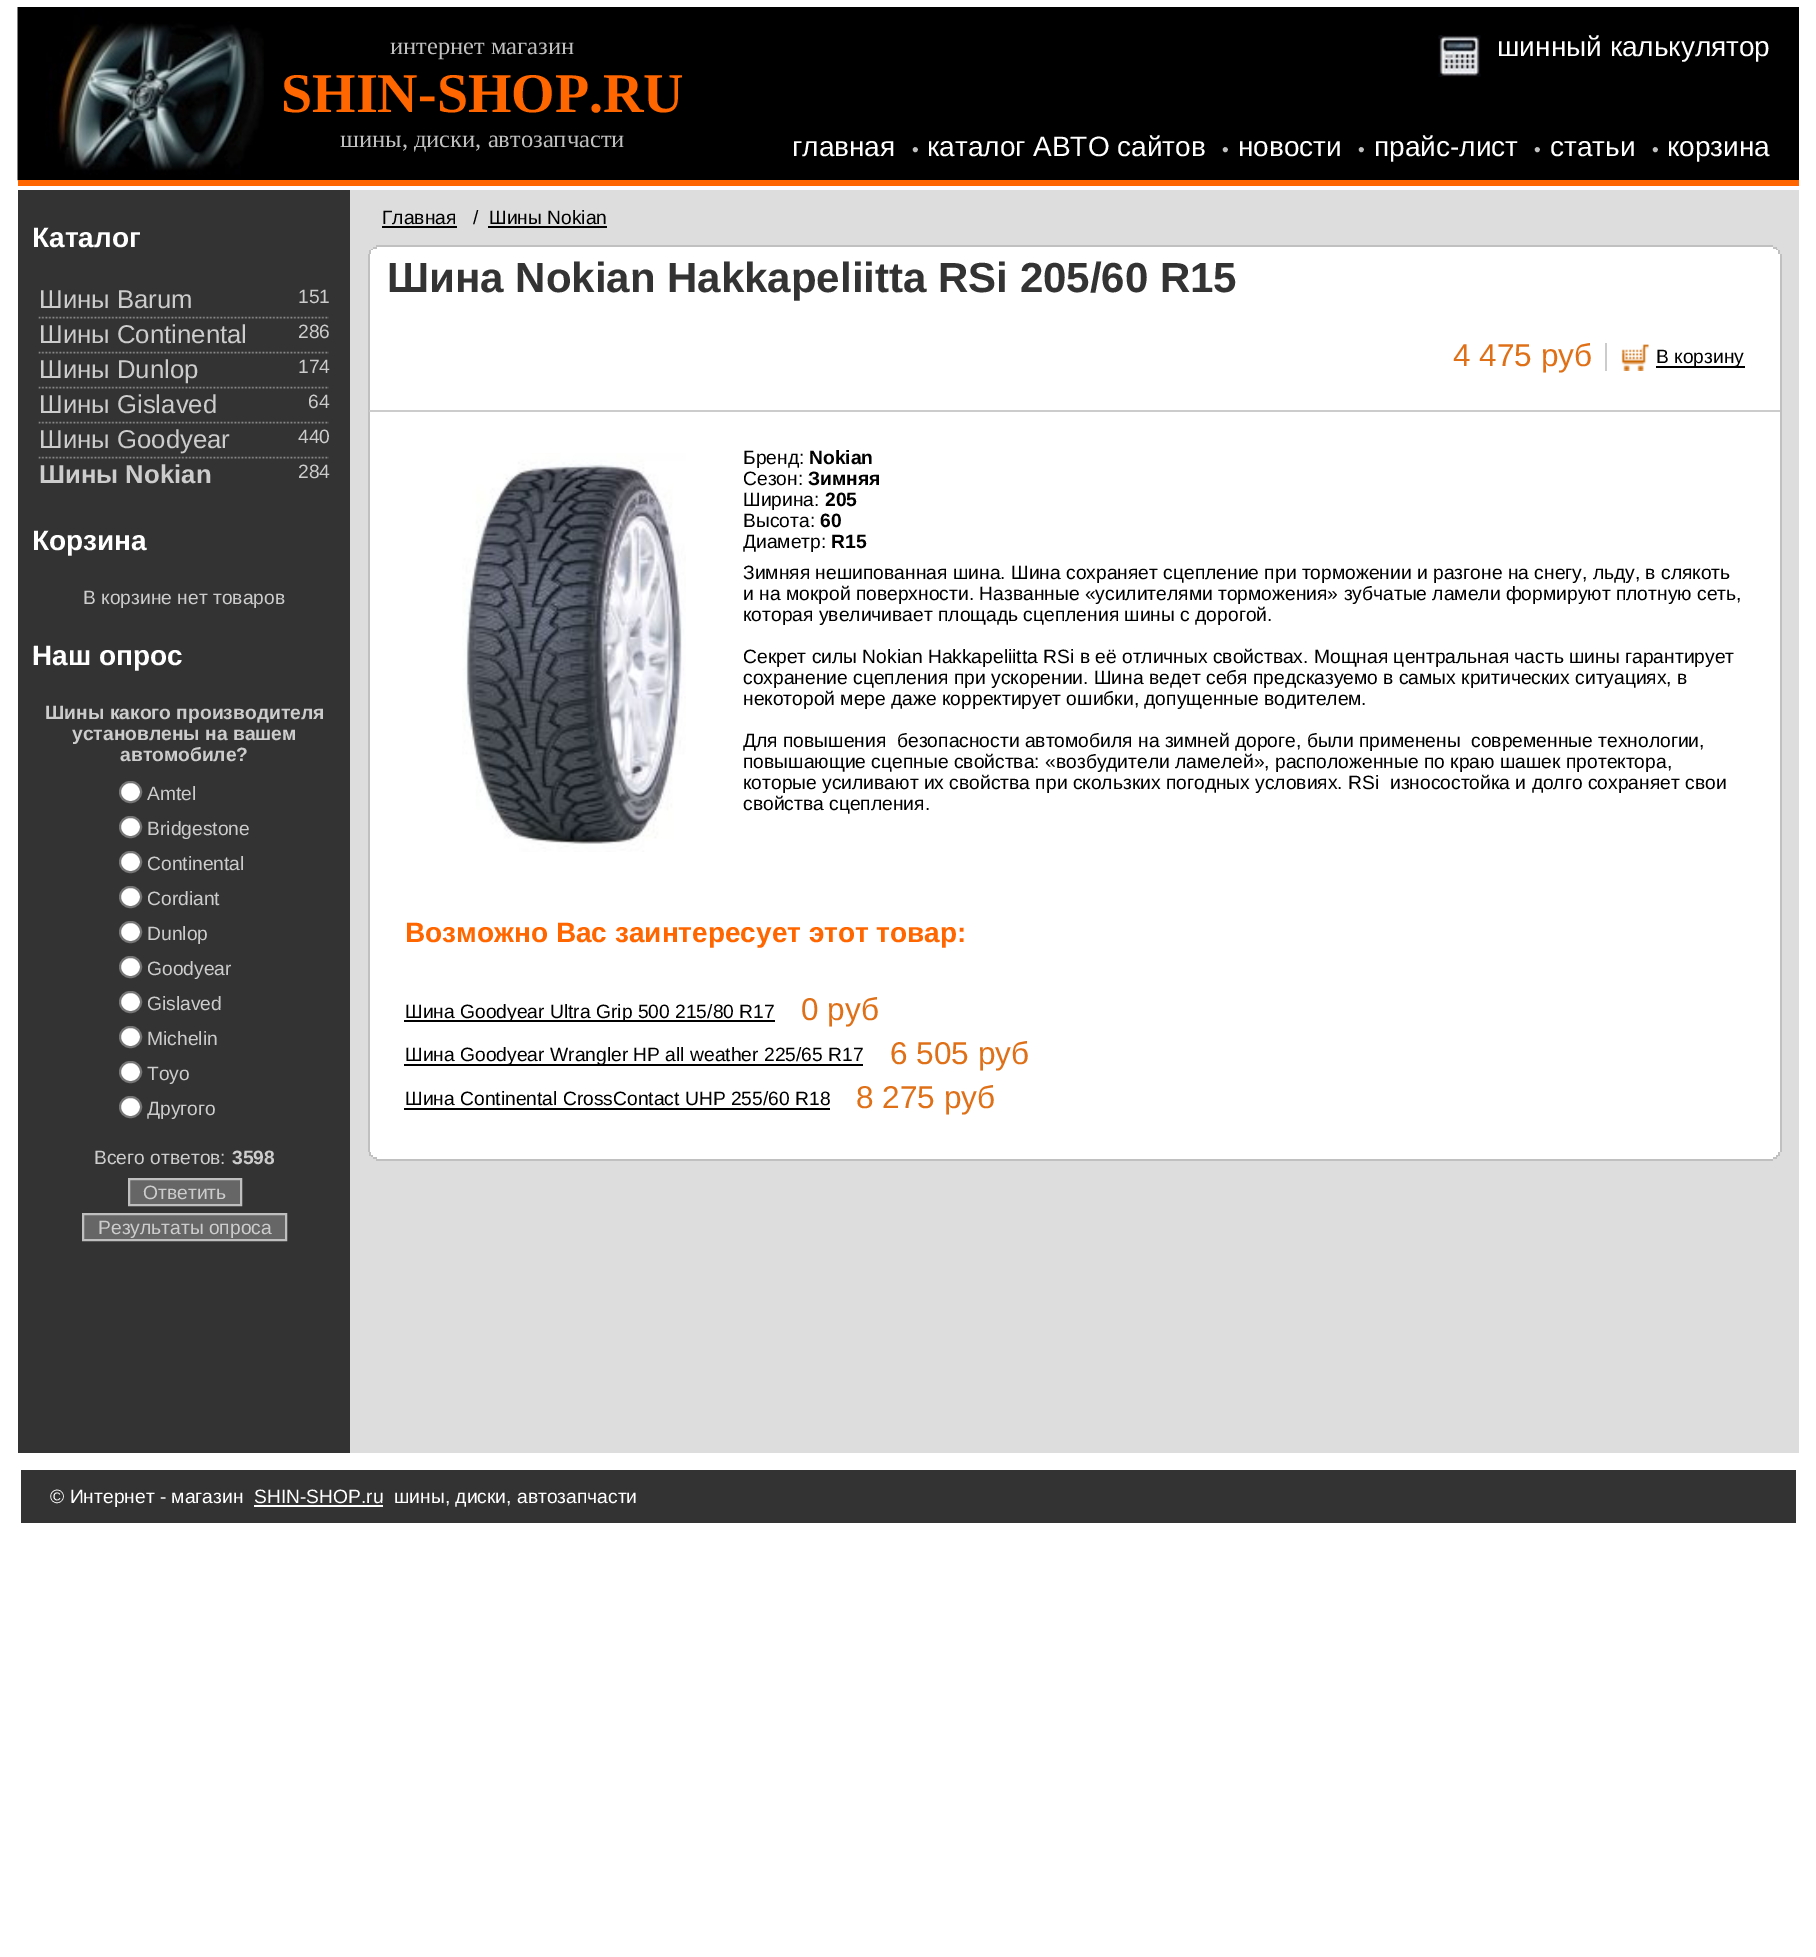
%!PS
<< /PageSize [1816 1957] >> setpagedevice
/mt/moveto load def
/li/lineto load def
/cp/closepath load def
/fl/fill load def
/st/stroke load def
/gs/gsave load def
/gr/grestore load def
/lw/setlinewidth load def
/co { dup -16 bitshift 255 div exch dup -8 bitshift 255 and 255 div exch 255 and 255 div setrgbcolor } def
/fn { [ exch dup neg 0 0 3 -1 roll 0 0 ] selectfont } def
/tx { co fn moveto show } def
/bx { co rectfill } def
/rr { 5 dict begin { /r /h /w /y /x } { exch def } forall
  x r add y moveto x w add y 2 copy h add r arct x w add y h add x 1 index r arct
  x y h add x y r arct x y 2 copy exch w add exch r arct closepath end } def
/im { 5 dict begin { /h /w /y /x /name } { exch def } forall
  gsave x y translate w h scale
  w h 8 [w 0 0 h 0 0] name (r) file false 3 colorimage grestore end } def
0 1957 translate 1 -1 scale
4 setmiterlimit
0 0 1816 1957 16#FFFFFF bx
264 7 1535 173 16#000000 bx
(media/1.raw) 17 7 247 174 im
(media/2.raw) 1438 35 43 42 im
18 180 1781 6 16#FF6600 bx
18 190 332 1263 16#333333 bx
(media/3.raw) 38 316 291 3 im
(media/3.raw) 38 351 291 3 im
(media/3.raw) 38 386 291 3 im
(media/3.raw) 38 421 291 3 im
(media/3.raw) 38 456 291 3 im
16#FFFFFF co
120 782 21 20 10 rr gs fl gr
16#767676 co
2 lw
st
16#FFFFFF co
120 817 21 20 10 rr gs fl gr
16#767676 co
st
16#FFFFFF co
120 852 21 20 10 rr gs fl gr
16#767676 co
st
16#FFFFFF co
120 887 21 20 10 rr gs fl gr
16#767676 co
st
16#FFFFFF co
120 922 21 20 10 rr gs fl gr
16#767676 co
st
16#FFFFFF co
120 957 21 20 10 rr gs fl gr
16#767676 co
st
16#FFFFFF co
120 992 21 20 10 rr gs fl gr
16#767676 co
st
16#FFFFFF co
120 1027 21 20 10 rr gs fl gr
16#767676 co
st
16#FFFFFF co
120 1062 21 20 10 rr gs fl gr
16#767676 co
st
16#FFFFFF co
120 1097 21 20 10 rr gs fl gr
16#767676 co
st
16#666666 co
129 1179 mt 241 1179 li 241 1205 li 129 1205 li cp gs fl gr
16#BFBFBF co
st
16#666666 co
83 1214 mt 286 1214 li 286 1240 li 83 1240 li cp gs fl gr
16#BFBFBF co
st
350 190 1449 1263 16#DDDDDD bx
382 226 75 2 16#000000 bx
488 226 119 2 16#000000 bx
376 245 1397 2 16#C0C0C0 bx
373 247 1403 2 16#FFFFFF bx
1773 247 4 2 16#C0C0C0 bx
373 247 4 2 16#C0C0C0 bx
371 249 1407 1 16#FFFFFF bx
1776 249 2 1 16#C0C0C0 bx
371 249 2 1 16#C0C0C0 bx
369 250 1411 4 16#FFFFFF bx
1778 250 2 4 16#C0C0C0 bx
369 250 2 4 16#C0C0C0 bx
370 254 1410 898 16#FFFFFF bx
1780 254 2 898 16#C0C0C0 bx
368 254 2 898 16#C0C0C0 bx
1605 343 2 28 16#CCCCCC bx
(media/4.raw) 1621 344 28 27 im
1656 366 89 2 16#000000 bx
369 410 1411 2 16#CCCCCC bx
(media/5.raw) 462 453 224 399 im
404 1020 371 2 16#000000 bx
404 1064 459 2 16#000000 bx
404 1108 426 2 16#000000 bx
369 1152 1411 3 16#FFFFFF bx
1778 1152 2 4 16#C0C0C0 bx
369 1152 2 4 16#C0C0C0 bx
371 1155 1407 2 16#FFFFFF bx
1776 1155 2 2 16#C0C0C0 bx
371 1155 2 2 16#C0C0C0 bx
373 1157 1403 2 16#FFFFFF bx
1773 1157 4 2 16#C0C0C0 bx
373 1157 4 2 16#C0C0C0 bx
376 1159 1397 2 16#C0C0C0 bx
21 1470 1775 53 16#333333 bx
254 1505 129 2 16#FFFFFF bx
(интернет магазин) 390 54 /LiberationSerif-Regular 24.5 16#C0C0C0 tx
(SHIN-SHOP.RU) 281 112 /LiberationSerif-Bold 56 16#FF6600 tx
(шины, диски, автозапчасти) 340 147 /LiberationSerif-Regular 24.5 16#C0C0C0 tx
(шинный калькулятор) 1497 56 /LiberationSans-Regular 28 16#FFFFFF tx
(главная) 792 156 /LiberationSans-Regular 28 16#FFFFFF tx
(•) 912 156 /LiberationSans-Regular 19.25 16#C0C0C0 tx
(каталог АВТО сайтов) 927 156 /LiberationSans-Regular 28 16#FFFFFF tx
(•) 1222 156 /LiberationSans-Regular 19.25 16#C0C0C0 tx
(новости) 1238 156 /LiberationSans-Regular 28 16#FFFFFF tx
(•) 1358 156 /LiberationSans-Regular 19.25 16#C0C0C0 tx
(прайс-лист) 1374 156 /LiberationSans-Regular 28 16#FFFFFF tx
(•) 1534 156 /LiberationSans-Regular 19.25 16#C0C0C0 tx
(статьи) 1550 156 /LiberationSans-Regular 28 16#FFFFFF tx
(•) 1652 156 /LiberationSans-Regular 19.25 16#C0C0C0 tx
(корзина) 1667 156 /LiberationSans-Regular 28 16#FFFFFF tx
(Каталог) 32 247 /LiberationSans-Bold 28 16#FFFFFF tx
(Шины Barum) 39 308 /LiberationSans-Regular 25.75 16#CCCCCC tx
(151) 298 303 /LiberationSans-Regular 19.25 16#CCCCCC tx
(Шины Continental) 39 343 /LiberationSans-Regular 25.75 16#CCCCCC tx
(286) 298 338 /LiberationSans-Regular 19.25 16#CCCCCC tx
(Шины Dunlop) 39 378 /LiberationSans-Regular 25.75 16#CCCCCC tx
(174) 298 373 /LiberationSans-Regular 19.25 16#CCCCCC tx
(Шины Gislaved) 39 413 /LiberationSans-Regular 25.75 16#CCCCCC tx
(64) 308 408 /LiberationSans-Regular 19.25 16#CCCCCC tx
(Шины Goodyear) 39 448 /LiberationSans-Regular 25.75 16#CCCCCC tx
(440) 298 443 /LiberationSans-Regular 19.25 16#CCCCCC tx
(Шины Nokian) 39 483 /LiberationSans-Bold 25.75 16#CCCCCC tx
(284) 298 478 /LiberationSans-Regular 19.25 16#CCCCCC tx
(Корзина) 32 550 /LiberationSans-Bold 28 16#FFFFFF tx
(В корзине нет товаров) 83 604 /LiberationSans-Regular 19.25 16#CCCCCC tx
(Наш опрос) 32 665 /LiberationSans-Bold 28 16#FFFFFF tx
(Шины какого производителя) 45 719 /LiberationSans-Bold 19.25 16#CCCCCC tx
(установлены на вашем) 72 740 /LiberationSans-Bold 19.25 16#CCCCCC tx
(автомобиле?) 120 761 /LiberationSans-Bold 19.25 16#CCCCCC tx
(Amtel) 147 800 /LiberationSans-Regular 19.25 16#CCCCCC tx
(Bridgestone) 147 835 /LiberationSans-Regular 19.25 16#CCCCCC tx
(Continental) 147 870 /LiberationSans-Regular 19.25 16#CCCCCC tx
(Cordiant) 147 905 /LiberationSans-Regular 19.25 16#CCCCCC tx
(Dunlop) 147 940 /LiberationSans-Regular 19.25 16#CCCCCC tx
(Goodyear) 147 975 /LiberationSans-Regular 19.25 16#CCCCCC tx
(Gislaved) 147 1010 /LiberationSans-Regular 19.25 16#CCCCCC tx
(Michelin) 147 1045 /LiberationSans-Regular 19.25 16#CCCCCC tx
(Toyo) 147 1080 /LiberationSans-Regular 19.25 16#CCCCCC tx
(Другого) 147 1115 /LiberationSans-Regular 19.25 16#CCCCCC tx
(Всего ответов:) 94 1164 /LiberationSans-Regular 19.25 16#CCCCCC tx
(3598) 232 1164 /LiberationSans-Bold 19.25 16#CCCCCC tx
(Ответить) 143 1199 /LiberationSans-Regular 19.25 16#CCCCCC tx
(Результаты опроса) 98 1234 /LiberationSans-Regular 19.25 16#CCCCCC tx
(Главная) 382 224 /LiberationSans-Regular 19.25 16#000000 tx
(/) 473 224 /LiberationSans-Regular 19.25 16#000000 tx
(Шины Nokian) 489 224 /LiberationSans-Regular 19.25 16#000000 tx
(Шина Nokian Hakkapeliitta RSi 205/60 R15) 387 292 /LiberationSans-Bold 42 16#333333 tx
(4 475 руб) 1453 366 /LiberationSans-Regular 31.5 16#DF7017 tx
(В корзину) 1656 363 /LiberationSans-Regular 19.25 16#000000 tx
(Бренд:) 743 464 /LiberationSans-Regular 19.25 16#000000 tx
(Nokian) 809 464 /LiberationSans-Bold 19.25 16#000000 tx
(Сезон:) 743 485 /LiberationSans-Regular 19.25 16#000000 tx
(Зимняя) 808 485 /LiberationSans-Bold 19.25 16#000000 tx
(Ширина:) 743 506 /LiberationSans-Regular 19.25 16#000000 tx
(205) 825 506 /LiberationSans-Bold 19.25 16#000000 tx
(Высота:) 743 527 /LiberationSans-Regular 19.25 16#000000 tx
(60) 820 527 /LiberationSans-Bold 19.25 16#000000 tx
(Диаметр:) 743 548 /LiberationSans-Regular 19.25 16#000000 tx
(R15) 831 548 /LiberationSans-Bold 19.25 16#000000 tx
(Зимняя нешипованная шина. Шина сохраняет сцепление при торможении и разгоне на снегу, льду, в слякоть) 743 579 /LiberationSans-Regular 19.25 16#000000 tx
(и на мокрой поверхности. Названные «усилителями торможения» зубчатые ламели формируют плотную сеть,) 743 600 /LiberationSans-Regular 19.25 16#000000 tx
(которая увеличивает площадь сцепления шины с дорогой.) 743 621 /LiberationSans-Regular 19.25 16#000000 tx
(Секрет силы Nokian Hakkapeliitta RSi в её отличных свойствах. Мощная центральная часть шины гарантирует) 743 663 /LiberationSans-Regular 19.25 16#000000 tx
(сохранение сцепления при ускорении. Шина ведет себя предсказуемо в самых критических ситуациях, в) 743 684 /LiberationSans-Regular 19.25 16#000000 tx
(некоторой мере даже корректирует ошибки, допущенные водителем.) 743 705 /LiberationSans-Regular 19.25 16#000000 tx
(Для повышения  безопасности автомобиля на зимней дороге, были применены  современные технологии,) 743 747 /LiberationSans-Regular 19.25 16#000000 tx
(повышающие сцепные свойства: «возбудители ламелей», расположенные по краю шашек протектора,) 743 768 /LiberationSans-Regular 19.25 16#000000 tx
(которые усиливают их свойства при скользких погодных условиях. RSi  износостойка и долго сохраняет свои) 743 789 /LiberationSans-Regular 19.25 16#000000 tx
(свойства сцепления.) 743 810 /LiberationSans-Regular 19.25 16#000000 tx
(Возможно Вас заинтересует этот товар:) 405 942 /LiberationSans-Bold 28 16#FF6600 tx
(Шина Goodyear Ultra Grip 500 215/80 R17) 405 1018 /LiberationSans-Regular 19.25 16#000000 tx
(0 руб) 801 1020 /LiberationSans-Regular 31.5 16#DF7017 tx
(Шина Goodyear Wrangler HP all weather 225/65 R17) 405 1061 /LiberationSans-Regular 19.25 16#000000 tx
(6 505 руб) 890 1064 /LiberationSans-Regular 31.5 16#DF7017 tx
(Шина Continental CrossContact UHP 255/60 R18) 405 1105 /LiberationSans-Regular 19.25 16#000000 tx
(8 275 руб) 856 1108 /LiberationSans-Regular 31.5 16#DF7017 tx
(© Интернет - магазин) 50 1503 /LiberationSans-Regular 19.25 16#FFFFFF tx
(SHIN-SHOP.ru) 254 1503 /LiberationSans-Regular 19.25 16#FFFFFF tx
(шины, диски, автозапчасти) 394 1503 /LiberationSans-Regular 19.25 16#FFFFFF tx
showpage
